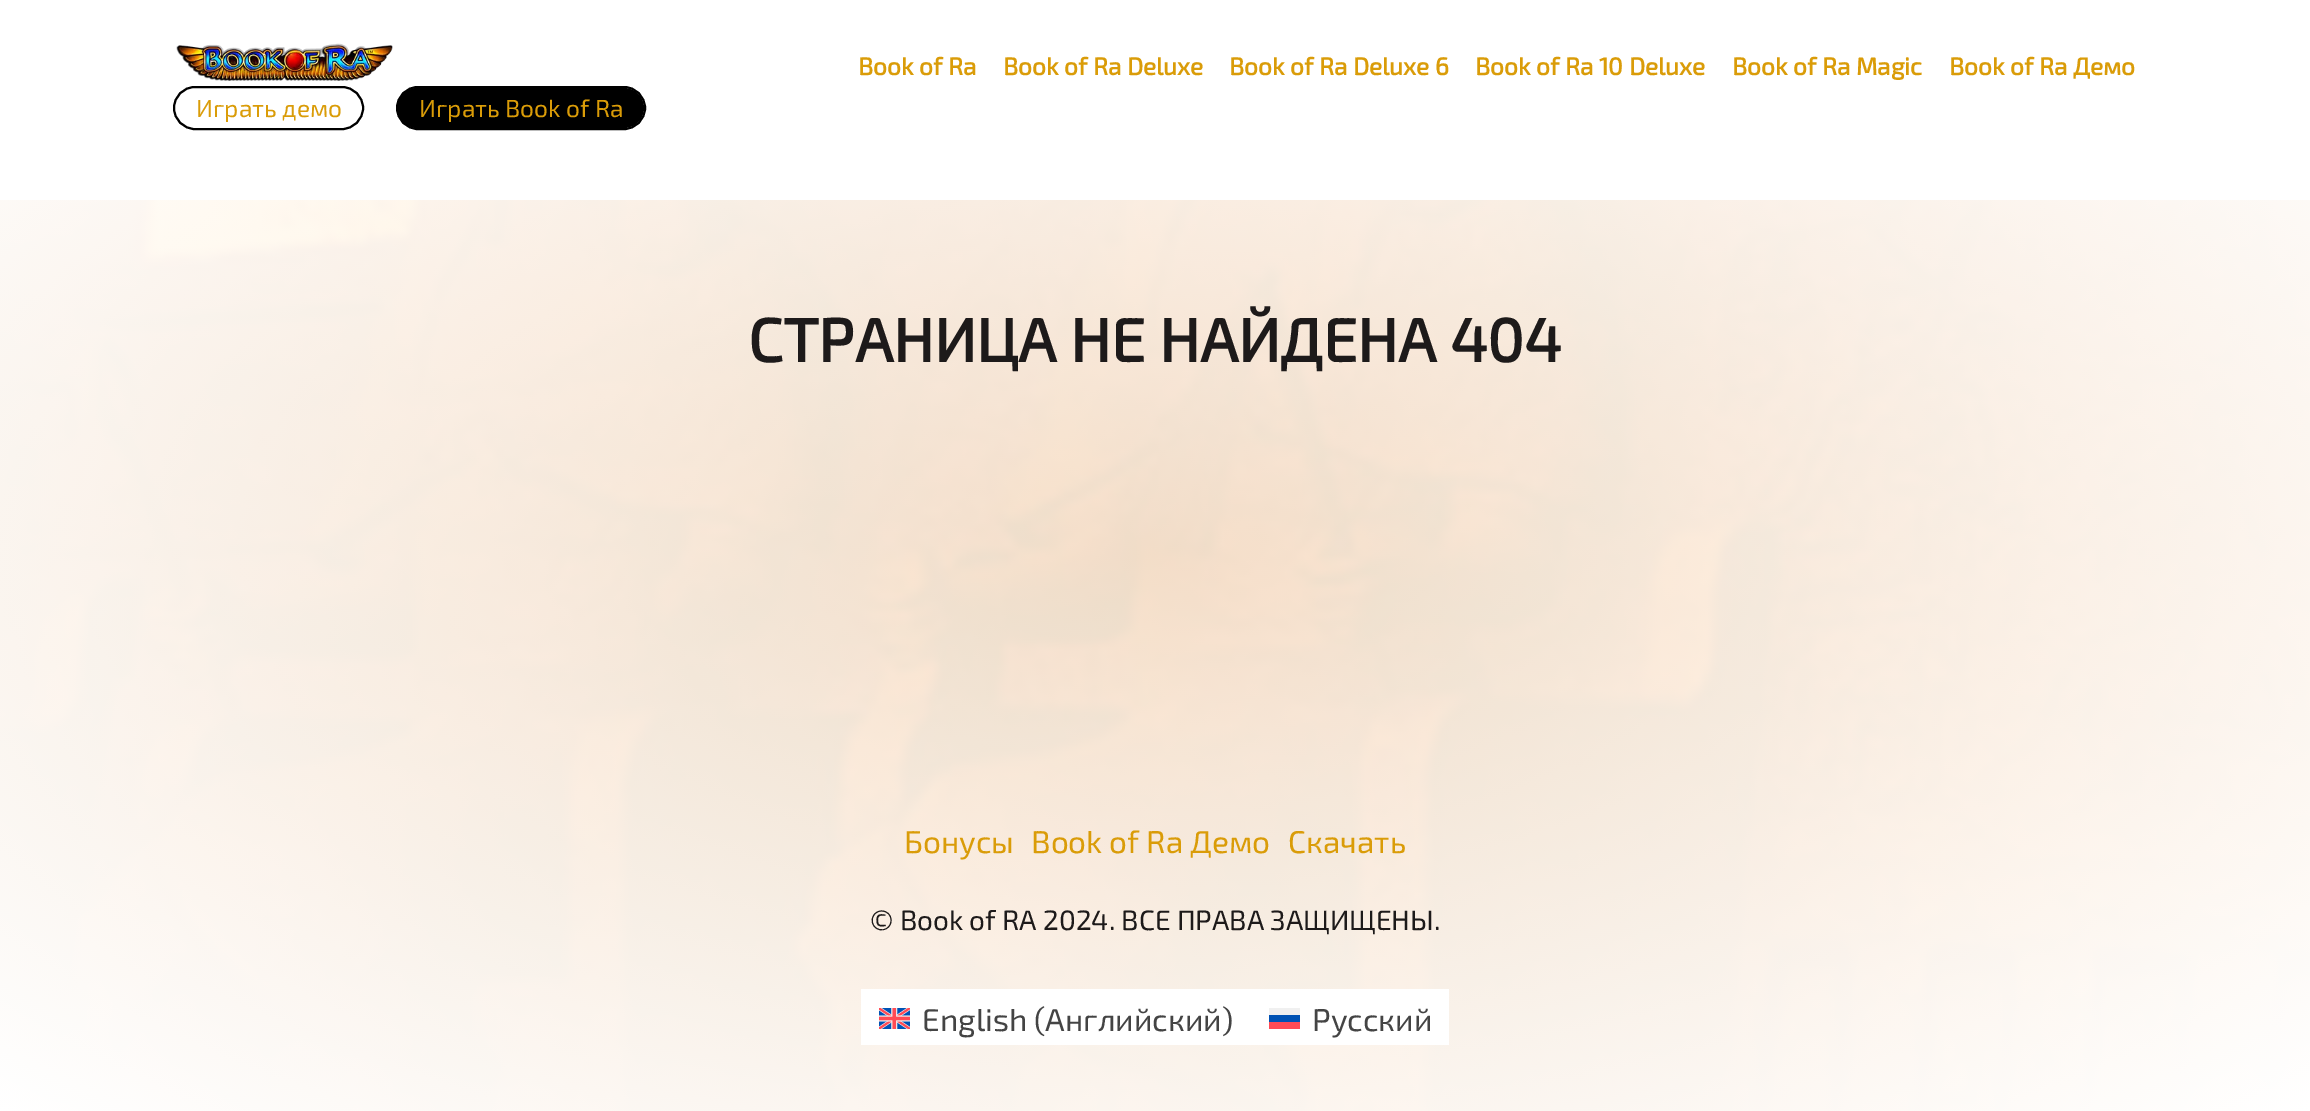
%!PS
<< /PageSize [2310 1111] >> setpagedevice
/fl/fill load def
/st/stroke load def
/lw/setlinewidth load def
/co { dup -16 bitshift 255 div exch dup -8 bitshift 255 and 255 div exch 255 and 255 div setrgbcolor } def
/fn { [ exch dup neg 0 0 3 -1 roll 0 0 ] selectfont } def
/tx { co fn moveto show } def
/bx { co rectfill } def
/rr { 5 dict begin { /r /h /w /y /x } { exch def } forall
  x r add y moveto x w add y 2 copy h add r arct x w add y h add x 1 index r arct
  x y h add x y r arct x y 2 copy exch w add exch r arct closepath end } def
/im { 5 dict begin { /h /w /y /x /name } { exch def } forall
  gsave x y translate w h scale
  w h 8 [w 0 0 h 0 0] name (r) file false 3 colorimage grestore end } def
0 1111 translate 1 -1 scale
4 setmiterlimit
0 0 2310 1111 16#FFFFFF bx
(media/1.raw) 0 200 2310 911 im
(media/2.raw) 176 43 217 38 im
16#000000 co
2 lw
174 87 189 42 21 rr st
397 88 247 40 20 rr fl
397 87 248 42 21 rr st
861 989 588 56 16#FFFFFF bx
(media/3.raw) 879 1008 31 21 im
1269 1008 31 7 16#F0F0F0 bx
1269 1015 31 7 16#0052B4 bx
1269 1022 31 7 16#FF4B55 bx
(Book of Ra) 858 75 /Exo2-Bold 24.5 16#DA9C08 tx
(Book of Ra Deluxe) 1003 75 /Exo2-Bold 24.5 16#DA9C08 tx
(Book of Ra Deluxe 6) 1229 75 /Exo2-Bold 24.5 16#DA9C08 tx
(Book of Ra 10 Deluxe) 1475 75 /Exo2-Bold 24.5 16#DA9C08 tx
(Book of Ra Magic) 1732 75 /Exo2-Bold 24.5 16#DA9C08 tx
(Book of Ra Демо) 1949 75 /Exo2-Bold 24.5 16#DA9C08 tx
(Играть демо) 196 117 /Exo2-Regular 24.5 16#DA9C08 tx
(Играть Book of Ra) 419 117 /Exo2-Regular 24.5 16#DA9C08 tx
(СТРАНИЦА НЕ НАЙДЕНА 404) 748 362 /Exo2-Bold 61.25 16#1D1A1A tx
(Бонусы) 904 853 /Exo2-Regular 31.5 16#DA9C08 tx
(Book of Ra Демо) 1031 853 /Exo2-Regular 31.5 16#DA9C08 tx
(Скачать) 1288 853 /Exo2-Regular 31.5 16#DA9C08 tx
(© Book of RA 2024. ВСЕ ПРАВА ЗАЩИЩЕНЫ.) 870 930 /Exo2-Regular 28 16#1D1A1A tx
(English \(Английский\)) 922 1031 /Exo2-Regular 31.5 16#444444 tx
(Русский) 1312 1031 /Exo2-Regular 31.5 16#444444 tx
showpage
